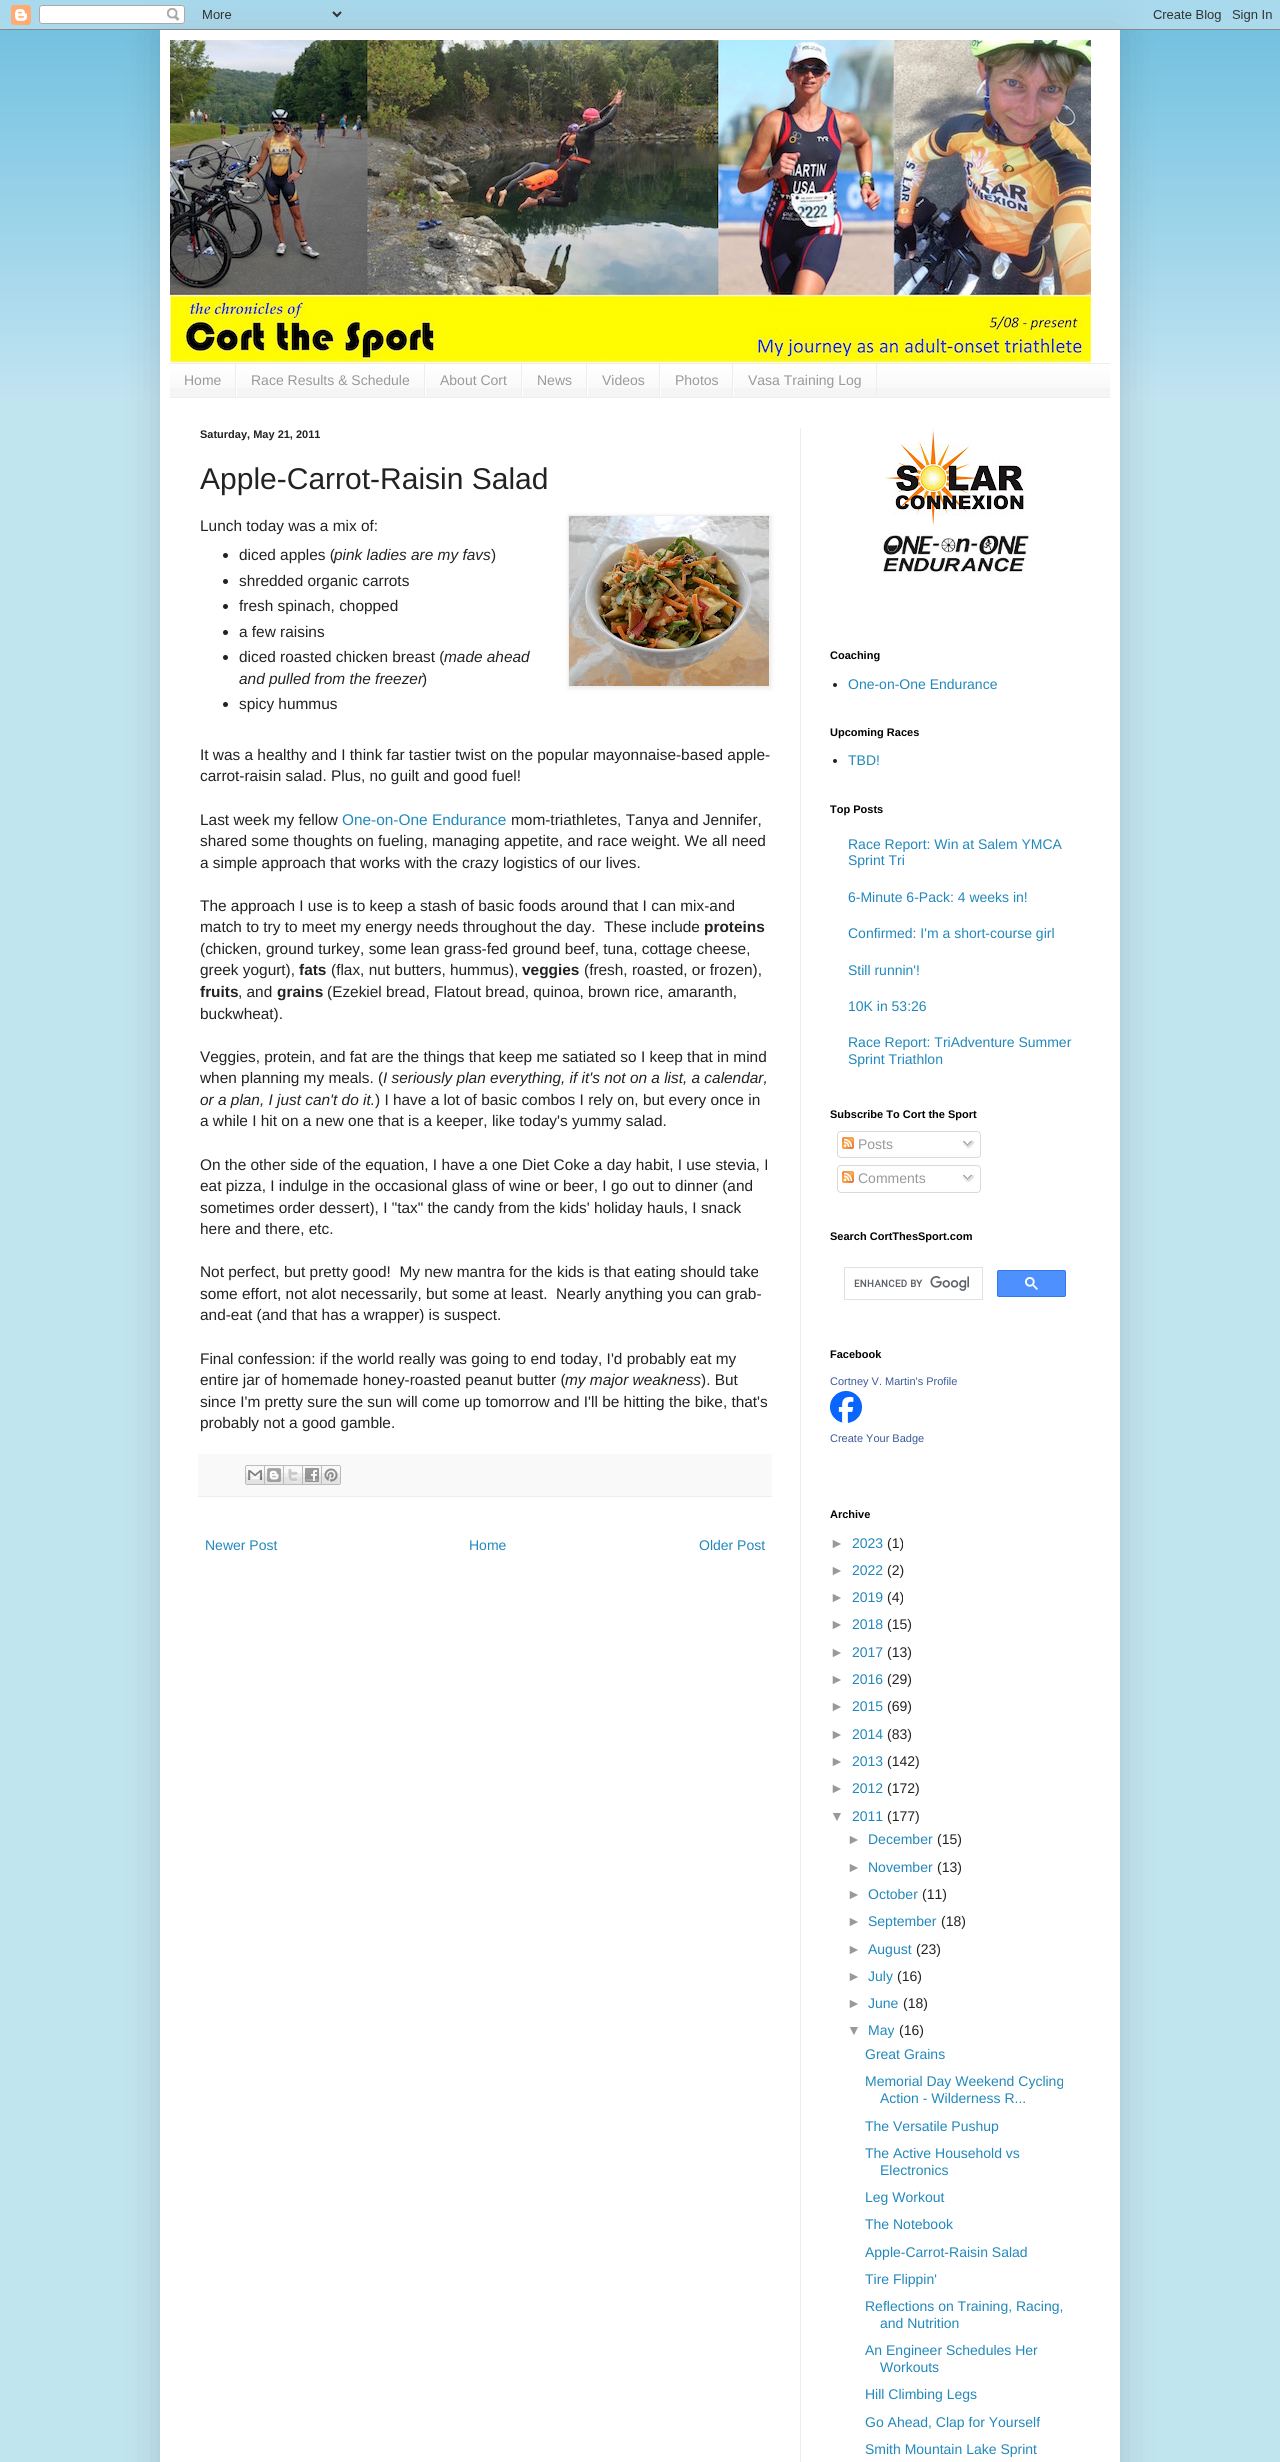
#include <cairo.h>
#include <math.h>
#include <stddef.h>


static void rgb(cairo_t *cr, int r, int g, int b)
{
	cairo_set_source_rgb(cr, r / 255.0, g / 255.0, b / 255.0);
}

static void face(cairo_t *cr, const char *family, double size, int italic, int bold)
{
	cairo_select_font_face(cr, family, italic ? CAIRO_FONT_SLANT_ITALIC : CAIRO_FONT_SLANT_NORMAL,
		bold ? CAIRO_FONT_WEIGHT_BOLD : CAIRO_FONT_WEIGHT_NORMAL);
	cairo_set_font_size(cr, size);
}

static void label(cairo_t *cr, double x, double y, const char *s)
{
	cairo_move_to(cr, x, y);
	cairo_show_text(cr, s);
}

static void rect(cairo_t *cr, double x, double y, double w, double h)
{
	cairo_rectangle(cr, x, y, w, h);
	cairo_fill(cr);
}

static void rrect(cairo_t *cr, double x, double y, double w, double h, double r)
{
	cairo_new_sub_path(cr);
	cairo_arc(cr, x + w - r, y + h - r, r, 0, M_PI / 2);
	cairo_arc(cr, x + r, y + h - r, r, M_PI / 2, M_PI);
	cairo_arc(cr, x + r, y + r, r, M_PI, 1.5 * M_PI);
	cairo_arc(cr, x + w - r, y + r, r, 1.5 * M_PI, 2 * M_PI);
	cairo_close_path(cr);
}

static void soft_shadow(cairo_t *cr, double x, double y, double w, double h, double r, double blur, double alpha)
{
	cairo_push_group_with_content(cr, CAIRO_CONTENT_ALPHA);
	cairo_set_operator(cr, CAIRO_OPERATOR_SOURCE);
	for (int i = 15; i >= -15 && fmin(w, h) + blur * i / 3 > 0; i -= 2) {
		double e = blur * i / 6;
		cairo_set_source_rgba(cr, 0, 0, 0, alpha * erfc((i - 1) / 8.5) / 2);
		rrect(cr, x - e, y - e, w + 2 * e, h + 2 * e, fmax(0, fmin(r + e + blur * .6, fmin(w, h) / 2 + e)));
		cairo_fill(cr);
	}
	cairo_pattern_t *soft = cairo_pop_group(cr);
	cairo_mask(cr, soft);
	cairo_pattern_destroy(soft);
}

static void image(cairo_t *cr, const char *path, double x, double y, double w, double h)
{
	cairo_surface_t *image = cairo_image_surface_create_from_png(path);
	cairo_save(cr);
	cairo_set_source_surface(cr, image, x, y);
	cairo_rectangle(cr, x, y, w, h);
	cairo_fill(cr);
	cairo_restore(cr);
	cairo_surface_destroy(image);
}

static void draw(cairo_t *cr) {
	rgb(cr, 193, 229, 239);
	cairo_paint(cr);
	rgb(cr, 102, 187, 221);
	rect(cr, 0, 0, 1280, 400);
	image(cr, "image0.png", 0, 0, 1280, 400);
	rgb(cr, 0, 0, 0);
	soft_shadow(cr, 160, 30, 960, 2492, 0, 20, 0.15);
	image(cr, "image1.png", 0, 0, 1280, 30);
	rgb(cr, 255, 255, 255);
	rect(cr, 160, 30, 960, 2432);
	image(cr, "image2.png", 170, 40, 921, 323);
	rgb(cr, 245, 245, 245);
	rect(cr, 170, 365, 940, 32);
	image(cr, "image3.png", 170, 364, 940, 24);
	rgb(cr, 238, 238, 238);
	rect(cr, 170, 363, 940, 1);
	rect(cr, 170, 397, 940, 1);
	rect(cr, 235, 364, 1, 33);
	face(cr, "Liberation Sans", 14, 0, 0);
	rgb(cr, 153, 153, 153);
	label(cr, 184, 385, "Home");
	rgb(cr, 238, 238, 238);
	rect(cr, 424, 364, 1, 33);
	rgb(cr, 255, 255, 255);
	rect(cr, 236, 375, 1, 22);
	rgb(cr, 153, 153, 153);
	label(cr, 251, 385, "Race Results & Schedule");
	rgb(cr, 238, 238, 238);
	rect(cr, 521, 364, 1, 33);
	rgb(cr, 255, 255, 255);
	rect(cr, 425, 375, 1, 22);
	rgb(cr, 153, 153, 153);
	label(cr, 440, 385, "About Cort");
	rgb(cr, 238, 238, 238);
	rect(cr, 586, 364, 1, 33);
	rgb(cr, 255, 255, 255);
	rect(cr, 522, 375, 1, 22);
	rgb(cr, 153, 153, 153);
	label(cr, 537, 385, "News");
	rgb(cr, 238, 238, 238);
	rect(cr, 659, 364, 1, 33);
	rgb(cr, 255, 255, 255);
	rect(cr, 587, 375, 1, 22);
	rgb(cr, 153, 153, 153);
	label(cr, 602, 385, "Videos");
	rgb(cr, 238, 238, 238);
	rect(cr, 732, 364, 1, 33);
	rgb(cr, 255, 255, 255);
	rect(cr, 660, 375, 1, 22);
	rgb(cr, 153, 153, 153);
	label(cr, 675, 385, "Photos");
	rgb(cr, 238, 238, 238);
	rect(cr, 876, 364, 1, 33);
	rgb(cr, 255, 255, 255);
	rect(cr, 733, 375, 1, 22);
	rgb(cr, 153, 153, 153);
	label(cr, 748, 385, "Vasa Training Log");
	rgb(cr, 238, 238, 238);
	rect(cr, 800, 428, 1, 2034);
	face(cr, "Liberation Sans", 11, 0, 1);
	rgb(cr, 34, 34, 34);
	label(cr, 200, 438, "Saturday, May 21, 2011");
	face(cr, "Liberation Sans", 30, 0, 0);
	label(cr, 200, 489, "Apple-Carrot-Raisin Salad");
	face(cr, "Liberation Sans", 15.4, 0, 0);
	label(cr, 200, 531, "Lunch today was a mix of:");
	rgb(cr, 0, 0, 0);
	soft_shadow(cr, 569, 516, 202, 172, 0, 2.5, 0.1);
	cairo_rectangle(cr, 568.5, 515.5, 201, 171);
	rgb(cr, 238, 238, 238);
	cairo_set_line_width(cr, 1);
	cairo_stroke(cr);
	image(cr, "image4.png", 569, 516, 200, 170);
	rgb(cr, 34, 34, 34);
	cairo_arc(cr, 225.5, 555.5, 2.5, 0, 2 * M_PI);
	cairo_fill(cr);
	label(cr, 239, 560, "diced apples (");
	face(cr, "Liberation Sans", 15.4, 1, 0);
	label(cr, 334, 560, "pink ladies are my favs");
	face(cr, "Liberation Sans", 15.4, 0, 0);
	label(cr, 491, 560, ")");
	cairo_new_path(cr);
	cairo_arc(cr, 225.5, 581.5, 2.5, 0, 2 * M_PI);
	cairo_fill(cr);
	label(cr, 239, 586, "shredded organic carrots");
	cairo_new_path(cr);
	cairo_arc(cr, 225.5, 606.5, 2.5, 0, 2 * M_PI);
	cairo_fill(cr);
	label(cr, 239, 611, "fresh spinach, chopped");
	cairo_new_path(cr);
	cairo_arc(cr, 225.5, 632.5, 2.5, 0, 2 * M_PI);
	cairo_fill(cr);
	label(cr, 239, 637, "a few raisins");
	cairo_new_path(cr);
	cairo_arc(cr, 225.5, 657.5, 2.5, 0, 2 * M_PI);
	cairo_fill(cr);
	label(cr, 239, 662, "diced roasted chicken breast (");
	face(cr, "Liberation Sans", 15.4, 1, 0);
	label(cr, 444, 662, "made ahead");
	label(cr, 239, 684, "and pulled from the freezer");
	face(cr, "Liberation Sans", 15.4, 0, 0);
	label(cr, 422, 684, ")");
	cairo_new_path(cr);
	cairo_arc(cr, 225.5, 704.5, 2.5, 0, 2 * M_PI);
	cairo_fill(cr);
	label(cr, 239, 709, "spicy hummus");
	label(cr, 200, 760, "It was a healthy and I think far tastier twist on the popular mayonnaise-based apple-");
	label(cr, 200, 781, "carrot-raisin salad. Plus, no guilt and good fuel!");
	label(cr, 200, 825, "Last week my fellow");
	rgb(cr, 34, 136, 187);
	label(cr, 342, 825, "One-on-One Endurance");
	rgb(cr, 34, 34, 34);
	label(cr, 511, 825, "mom-triathletes, Tanya and Jennifer,");
	label(cr, 200, 846, "shared some thoughts on fueling, managing appetite, and race weight. We all need");
	label(cr, 200, 868, "a simple approach that works with the crazy logistics of our lives.");
	label(cr, 200, 911, "The approach I use is to keep a stash of basic foods around that I can mix-and");
	label(cr, 200, 932, "match to try to meet my energy needs throughout the day.  These include");
	face(cr, "Liberation Sans", 15.4, 0, 1);
	label(cr, 704, 932, "proteins");
	face(cr, "Liberation Sans", 15.4, 0, 0);
	label(cr, 200, 954, "(chicken, ground turkey, some lean grass-fed ground beef, tuna, cottage cheese,");
	label(cr, 200, 975, "greek yogurt),");
	face(cr, "Liberation Sans", 15.4, 0, 1);
	label(cr, 299, 975, "fats");
	face(cr, "Liberation Sans", 15.4, 0, 0);
	label(cr, 331, 975, "(flax, nut butters, hummus),");
	face(cr, "Liberation Sans", 15.4, 0, 1);
	label(cr, 522, 975, "veggies");
	face(cr, "Liberation Sans", 15.4, 0, 0);
	label(cr, 584, 975, "(fresh, roasted, or frozen),");
	face(cr, "Liberation Sans", 15.4, 0, 1);
	label(cr, 200, 997, "fruits");
	face(cr, "Liberation Sans", 15.4, 0, 0);
	label(cr, 238, 997, ", and");
	face(cr, "Liberation Sans", 15.4, 0, 1);
	label(cr, 277, 997, "grains");
	face(cr, "Liberation Sans", 15.4, 0, 0);
	label(cr, 327, 997, "(Ezekiel bread, Flatout bread, quinoa, brown rice, amaranth,");
	label(cr, 200, 1019, "buckwheat).");
	label(cr, 200, 1062, "Veggies, protein, and fat are the things that keep me satiated so I keep that in mind");
	label(cr, 200, 1083, "when planning my meals. (");
	face(cr, "Liberation Sans", 15.4, 1, 0);
	label(cr, 383, 1083, "I seriously plan everything, if it's not on a list, a calendar,");
	label(cr, 200, 1105, "or a plan, I just can't do it.");
	face(cr, "Liberation Sans", 15.4, 0, 0);
	label(cr, 375, 1105, ") I have a lot of basic combos I rely on, but every once in");
	label(cr, 200, 1126, "a while I hit on a new one that is a keeper, like today's yummy salad.");
	label(cr, 200, 1170, "On the other side of the equation, I have a one Diet Coke a day habit, I use stevia, I");
	label(cr, 200, 1191, "eat pizza, I indulge in the occasional glass of wine or beer, I go out to dinner (and");
	label(cr, 200, 1213, "sometimes order dessert), I \"tax\" the candy from the kids' holiday hauls, I snack");
	label(cr, 200, 1234, "here and there, etc.");
	label(cr, 200, 1277, "Not perfect, but pretty good!  My new mantra for the kids is that eating should take");
	label(cr, 200, 1299, "some effort, not alot necessarily, but some at least.  Nearly anything you can grab-");
	label(cr, 200, 1320, "and-eat (and that has a wrapper) is suspect.");
	label(cr, 200, 1364, "Final confession: if the world really was going to end today, I'd probably eat my");
	label(cr, 200, 1385, "entire jar of homemade honey-roasted peanut butter (");
	face(cr, "Liberation Sans", 15.4, 1, 0);
	label(cr, 565, 1385, "my major weakness");
	face(cr, "Liberation Sans", 15.4, 0, 0);
	label(cr, 701, 1385, "). But");
	label(cr, 200, 1407, "since I'm pretty sure the sun will come up tomorrow and I'll be hitting the bike, that's");
	label(cr, 200, 1428, "probably not a good gamble.");
	rgb(cr, 249, 249, 249);
	rect(cr, 198, 1454, 574, 42);
	rgb(cr, 238, 238, 238);
	rect(cr, 198, 1496, 574, 1);
	image(cr, "image5.png", 245, 1465, 20, 20);
	image(cr, "image6.png", 265, 1465, 19, 20);
	image(cr, "image7.png", 284, 1465, 19, 20);
	image(cr, "image8.png", 303, 1465, 19, 20);
	image(cr, "image9.png", 322, 1465, 19, 20);
	face(cr, "Liberation Sans", 14, 0, 0);
	rgb(cr, 34, 136, 187);
	label(cr, 205, 1550, "Newer Post");
	label(cr, 469, 1550, "Home");
	label(cr, 699, 1550, "Older Post");
	image(cr, "image10.png", 885, 428, 141, 99);
	image(cr, "image11.png", 880, 532, 150, 42);
	face(cr, "Liberation Sans", 11, 0, 1);
	rgb(cr, 0, 0, 0);
	label(cr, 830, 659, "Coaching");
	rgb(cr, 34, 34, 34);
	cairo_new_path(cr);
	cairo_arc(cr, 835, 685, 2, 0, 2 * M_PI);
	cairo_fill(cr);
	face(cr, "Liberation Sans", 14, 0, 0);
	rgb(cr, 34, 136, 187);
	label(cr, 848, 689, "One-on-One Endurance");
	face(cr, "Liberation Sans", 11, 0, 1);
	rgb(cr, 0, 0, 0);
	label(cr, 830, 736, "Upcoming Races");
	rgb(cr, 34, 34, 34);
	cairo_new_path(cr);
	cairo_arc(cr, 835, 761, 2, 0, 2 * M_PI);
	cairo_fill(cr);
	face(cr, "Liberation Sans", 14, 0, 0);
	rgb(cr, 34, 136, 187);
	label(cr, 848, 765, "TBD!");
	face(cr, "Liberation Sans", 11, 0, 1);
	rgb(cr, 0, 0, 0);
	label(cr, 830, 813, "Top Posts");
	face(cr, "Liberation Sans", 14, 0, 0);
	rgb(cr, 34, 136, 187);
	label(cr, 848, 849, "Race Report: Win at Salem YMCA");
	label(cr, 848, 865, "Sprint Tri");
	label(cr, 848, 902, "6-Minute 6-Pack: 4 weeks in!");
	label(cr, 848, 938, "Confirmed: I'm a short-course girl");
	label(cr, 848, 975, "Still runnin'!");
	label(cr, 848, 1011, "10K in 53:26");
	label(cr, 848, 1047, "Race Report: TriAdventure Summer");
	label(cr, 848, 1064, "Sprint Triathlon");
	face(cr, "Liberation Sans", 11, 0, 1);
	rgb(cr, 0, 0, 0);
	label(cr, 830, 1118, "Subscribe To Cort the Sport");
	image(cr, "image12.png", 837, 1131, 144, 24);
	image(cr, "image13.png", 842, 1137, 12, 12);
	face(cr, "Liberation Sans", 14, 0, 0);
	rgb(cr, 153, 153, 153);
	label(cr, 858, 1149, "Posts");
	image(cr, "image14.png", 962, 1140, 13, 9);
	image(cr, "image15.png", 837, 1155, 144, 3);
	image(cr, "image16.png", 837, 1165, 144, 25);
	image(cr, "image13.png", 842, 1171, 12, 12);
	label(cr, 858, 1183, "Comments");
	image(cr, "image14.png", 962, 1174, 13, 9);
	image(cr, "image15.png", 837, 1190, 144, 3);
	face(cr, "Liberation Sans", 11, 0, 1);
	rgb(cr, 0, 0, 0);
	label(cr, 830, 1240, "Search CortThesSport.com");
	cairo_rectangle(cr, 844.5, 1267.5, 138, 32);
	rgb(cr, 223, 225, 229);
	cairo_stroke(cr);
	image(cr, "image17.png", 854, 1276, 115, 15);
	rgb(cr, 77, 144, 254);
	rrect(cr, 997.5, 1270.5, 68, 26, 1.5);
	cairo_fill_preserve(cr);
	rgb(cr, 48, 121, 237);
	cairo_stroke(cr);
	image(cr, "image18.png", 1025, 1277, 13, 13);
	rgb(cr, 0, 0, 0);
	label(cr, 830, 1358, "Facebook");
	face(cr, "Liberation Sans", 11, 0, 0);
	rgb(cr, 59, 89, 152);
	label(cr, 830, 1385, "Cortney V. Martin's Profile");
	image(cr, "image19.png", 830, 1391, 32, 32);
	label(cr, 830, 1442, "Create Your Badge");
	face(cr, "Liberation Sans", 11, 0, 1);
	rgb(cr, 0, 0, 0);
	label(cr, 830, 1518, "Archive");
	face(cr, "Liberation Sans", 14, 0, 0);
	rgb(cr, 153, 153, 153);
	label(cr, 830, 1548, "►");
	rgb(cr, 34, 136, 187);
	label(cr, 852, 1548, "2023");
	rgb(cr, 34, 34, 34);
	label(cr, 887, 1548, "(1)");
	rgb(cr, 153, 153, 153);
	label(cr, 830, 1575, "►");
	rgb(cr, 34, 136, 187);
	label(cr, 852, 1575, "2022");
	rgb(cr, 34, 34, 34);
	label(cr, 887, 1575, "(2)");
	rgb(cr, 153, 153, 153);
	label(cr, 830, 1602, "►");
	rgb(cr, 34, 136, 187);
	label(cr, 852, 1602, "2019");
	rgb(cr, 34, 34, 34);
	label(cr, 887, 1602, "(4)");
	rgb(cr, 153, 153, 153);
	label(cr, 830, 1629, "►");
	rgb(cr, 34, 136, 187);
	label(cr, 852, 1629, "2018");
	rgb(cr, 34, 34, 34);
	label(cr, 887, 1629, "(15)");
	rgb(cr, 153, 153, 153);
	label(cr, 830, 1657, "►");
	rgb(cr, 34, 136, 187);
	label(cr, 852, 1657, "2017");
	rgb(cr, 34, 34, 34);
	label(cr, 887, 1657, "(13)");
	rgb(cr, 153, 153, 153);
	label(cr, 830, 1684, "►");
	rgb(cr, 34, 136, 187);
	label(cr, 852, 1684, "2016");
	rgb(cr, 34, 34, 34);
	label(cr, 887, 1684, "(29)");
	rgb(cr, 153, 153, 153);
	label(cr, 830, 1711, "►");
	rgb(cr, 34, 136, 187);
	label(cr, 852, 1711, "2015");
	rgb(cr, 34, 34, 34);
	label(cr, 887, 1711, "(69)");
	rgb(cr, 153, 153, 153);
	label(cr, 830, 1739, "►");
	rgb(cr, 34, 136, 187);
	label(cr, 852, 1739, "2014");
	rgb(cr, 34, 34, 34);
	label(cr, 887, 1739, "(83)");
	rgb(cr, 153, 153, 153);
	label(cr, 830, 1766, "►");
	rgb(cr, 34, 136, 187);
	label(cr, 852, 1766, "2013");
	rgb(cr, 34, 34, 34);
	label(cr, 887, 1766, "(142)");
	rgb(cr, 153, 153, 153);
	label(cr, 830, 1793, "►");
	rgb(cr, 34, 136, 187);
	label(cr, 852, 1793, "2012");
	rgb(cr, 34, 34, 34);
	label(cr, 887, 1793, "(172)");
	rgb(cr, 153, 153, 153);
	label(cr, 830, 1821, "▼");
	rgb(cr, 34, 136, 187);
	label(cr, 852, 1821, "2011");
	rgb(cr, 34, 34, 34);
	label(cr, 887, 1821, "(177)");
	rgb(cr, 153, 153, 153);
	label(cr, 847, 1844, "►");
	rgb(cr, 34, 136, 187);
	label(cr, 868, 1844, "December");
	rgb(cr, 34, 34, 34);
	label(cr, 937, 1844, "(15)");
	rgb(cr, 153, 153, 153);
	label(cr, 847, 1872, "►");
	rgb(cr, 34, 136, 187);
	label(cr, 868, 1872, "November");
	rgb(cr, 34, 34, 34);
	label(cr, 937, 1872, "(13)");
	rgb(cr, 153, 153, 153);
	label(cr, 847, 1899, "►");
	rgb(cr, 34, 136, 187);
	label(cr, 868, 1899, "October");
	rgb(cr, 34, 34, 34);
	label(cr, 922, 1899, "(11)");
	rgb(cr, 153, 153, 153);
	label(cr, 847, 1926, "►");
	rgb(cr, 34, 136, 187);
	label(cr, 868, 1926, "September");
	rgb(cr, 34, 34, 34);
	label(cr, 941, 1926, "(18)");
	rgb(cr, 153, 153, 153);
	label(cr, 847, 1954, "►");
	rgb(cr, 34, 136, 187);
	label(cr, 868, 1954, "August");
	rgb(cr, 34, 34, 34);
	label(cr, 916, 1954, "(23)");
	rgb(cr, 153, 153, 153);
	label(cr, 847, 1981, "►");
	rgb(cr, 34, 136, 187);
	label(cr, 868, 1981, "July");
	rgb(cr, 34, 34, 34);
	label(cr, 897, 1981, "(16)");
	rgb(cr, 153, 153, 153);
	label(cr, 847, 2008, "►");
	rgb(cr, 34, 136, 187);
	label(cr, 868, 2008, "June");
	rgb(cr, 34, 34, 34);
	label(cr, 903, 2008, "(18)");
	rgb(cr, 153, 153, 153);
	label(cr, 847, 2035, "▼");
	rgb(cr, 34, 136, 187);
	label(cr, 868, 2035, "May");
	rgb(cr, 34, 34, 34);
	label(cr, 899, 2035, "(16)");
	rgb(cr, 34, 136, 187);
	label(cr, 865, 2059, "Great Grains");
	label(cr, 865, 2086, "Memorial Day Weekend Cycling");
	label(cr, 880, 2103, "Action - Wilderness R...");
	label(cr, 865, 2131, "The Versatile Pushup");
	label(cr, 865, 2158, "The Active Household vs");
	label(cr, 880, 2175, "Electronics");
	label(cr, 865, 2202, "Leg Workout");
	label(cr, 865, 2229, "The Notebook");
	label(cr, 865, 2257, "Apple-Carrot-Raisin Salad");
	label(cr, 865, 2284, "Tire Flippin'");
	label(cr, 865, 2311, "Reflections on Training, Racing,");
	label(cr, 880, 2328, "and Nutrition");
	label(cr, 865, 2355, "An Engineer Schedules Her");
	label(cr, 880, 2372, "Workouts");
	label(cr, 865, 2399, "Hill Climbing Legs");
	label(cr, 865, 2427, "Go Ahead, Clap for Yourself");
	label(cr, 865, 2454, "Smith Mountain Lake Sprint");
}

int main(void) {
	cairo_surface_t *surface = cairo_image_surface_create(CAIRO_FORMAT_RGB24, 1280, 2462);
	cairo_t *cr = cairo_create(surface);
	cairo_font_options_t *options = cairo_font_options_create();
	cairo_font_options_set_hint_metrics(options, CAIRO_HINT_METRICS_OFF);
	cairo_font_options_set_hint_style(options, CAIRO_HINT_STYLE_NONE);
	cairo_set_font_options(cr, options);
	cairo_set_miter_limit(cr, 4);
	draw(cr);
	cairo_surface_write_to_png(surface, "render.png");
	cairo_font_options_destroy(options);
	cairo_destroy(cr);
	cairo_surface_destroy(surface);
	return 0;
}
